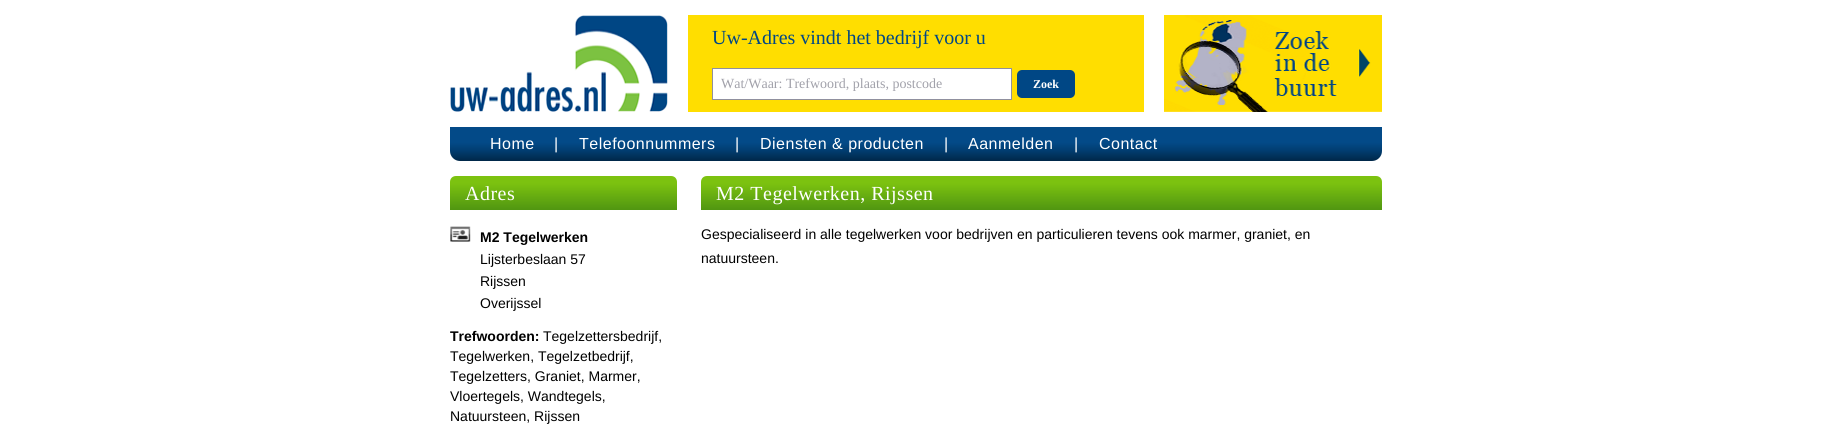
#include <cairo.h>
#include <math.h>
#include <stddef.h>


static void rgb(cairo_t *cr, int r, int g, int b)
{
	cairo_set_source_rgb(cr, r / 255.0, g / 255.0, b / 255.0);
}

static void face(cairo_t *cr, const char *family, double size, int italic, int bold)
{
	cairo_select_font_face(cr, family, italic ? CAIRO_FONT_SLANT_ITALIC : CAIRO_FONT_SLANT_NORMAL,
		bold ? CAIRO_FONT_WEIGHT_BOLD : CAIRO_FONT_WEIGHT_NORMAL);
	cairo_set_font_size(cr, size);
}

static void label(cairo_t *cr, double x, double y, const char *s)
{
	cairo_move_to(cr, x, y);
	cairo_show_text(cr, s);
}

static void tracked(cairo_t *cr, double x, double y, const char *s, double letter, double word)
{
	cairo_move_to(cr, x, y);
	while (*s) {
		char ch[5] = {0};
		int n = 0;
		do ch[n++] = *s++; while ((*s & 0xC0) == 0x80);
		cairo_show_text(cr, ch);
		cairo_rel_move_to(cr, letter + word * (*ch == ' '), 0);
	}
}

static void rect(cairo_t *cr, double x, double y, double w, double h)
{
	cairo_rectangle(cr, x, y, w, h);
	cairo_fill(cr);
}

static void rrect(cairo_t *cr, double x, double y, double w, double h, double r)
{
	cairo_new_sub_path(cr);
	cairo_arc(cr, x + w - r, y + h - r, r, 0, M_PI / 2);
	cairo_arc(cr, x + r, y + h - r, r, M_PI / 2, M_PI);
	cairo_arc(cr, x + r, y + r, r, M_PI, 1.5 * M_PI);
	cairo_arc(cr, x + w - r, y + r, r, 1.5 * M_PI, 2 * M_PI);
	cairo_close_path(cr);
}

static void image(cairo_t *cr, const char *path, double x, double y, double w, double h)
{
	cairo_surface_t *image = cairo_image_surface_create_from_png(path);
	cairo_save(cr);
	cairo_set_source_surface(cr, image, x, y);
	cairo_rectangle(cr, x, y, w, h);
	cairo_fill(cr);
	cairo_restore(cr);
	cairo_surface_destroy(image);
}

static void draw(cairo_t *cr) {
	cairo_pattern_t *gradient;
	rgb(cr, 255, 255, 255);
	cairo_paint(cr);
	image(cr, "image0.png", 450, 15, 218, 97);
	rgb(cr, 255, 222, 0);
	rect(cr, 688, 15, 456, 97);
	face(cr, "Liberation Serif", 20, 0, 0);
	rgb(cr, 0, 71, 133);
	label(cr, 712, 44, "Uw-Adres vindt het bedrijf voor u");
	rgb(cr, 255, 255, 255);
	cairo_rectangle(cr, 712.5, 68.5, 299, 31);
	cairo_fill_preserve(cr);
	rgb(cr, 144, 144, 158);
	cairo_set_line_width(cr, 1);
	cairo_stroke(cr);
	face(cr, "Liberation Serif", 14, 0, 0);
	rgb(cr, 161, 161, 170);
	label(cr, 721, 88, "Wat/Waar: Trefwoord, plaats, postcode");
	rgb(cr, 0, 71, 133);
	rrect(cr, 1017, 70, 58, 28, 5);
	cairo_fill(cr);
	face(cr, "Liberation Serif", 12, 0, 1);
	rgb(cr, 255, 255, 255);
	label(cr, 1033, 88, "Zoek");
	image(cr, "image1.png", 1164, 15, 218, 97);
	gradient = cairo_pattern_create_linear(916, 161, 916, 127);
	cairo_pattern_add_color_stop_rgba(gradient, 0, 0, 0.153, 0.282, 1);
	cairo_pattern_add_color_stop_rgba(gradient, 0.3, 0.004, 0.239, 0.439, 1);
	cairo_pattern_add_color_stop_rgba(gradient, 0.55, 0.012, 0.29, 0.533, 1);
	cairo_set_source(cr, gradient);
	cairo_pattern_destroy(gradient);
	cairo_new_path(cr);
	cairo_move_to(cr, 450, 127);
	cairo_line_to(cr, 1382, 127);
	cairo_line_to(cr, 1382, 151);
	cairo_curve_to(cr, 1382, 156.5, 1377.5, 161, 1372, 161);
	cairo_line_to(cr, 460, 161);
	cairo_curve_to(cr, 454.5, 161, 450, 156.5, 450, 151);
	cairo_close_path(cr);
	cairo_fill(cr);
	face(cr, "Liberation Sans", 16, 0, 0);
	rgb(cr, 255, 255, 255);
	tracked(cr, 490, 149, "Home", 0.5, 0);
	tracked(cr, 554, 149, "|", 0.5, 0);
	tracked(cr, 579, 149, "Telefoonnummers", 0.5, 0);
	tracked(cr, 735, 149, "|", 0.5, 0);
	tracked(cr, 760, 149, "Diensten & producten", 0.5, 0);
	tracked(cr, 944, 149, "|", 0.5, 0);
	tracked(cr, 968, 149, "Aanmelden", 0.5, 0);
	tracked(cr, 1074, 149, "|", 0.5, 0);
	tracked(cr, 1099, 149, "Contact", 0.5, 0);
	gradient = cairo_pattern_create_linear(564, 210, 564, 176);
	cairo_pattern_add_color_stop_rgba(gradient, 0, 0.314, 0.588, 0.067, 1);
	cairo_pattern_add_color_stop_rgba(gradient, 0.79, 0.486, 0.761, 0.063, 1);
	cairo_set_source(cr, gradient);
	cairo_pattern_destroy(gradient);
	cairo_new_path(cr);
	cairo_move_to(cr, 456, 176);
	cairo_line_to(cr, 671, 176);
	cairo_curve_to(cr, 674.5, 176, 677, 178.5, 677, 182);
	cairo_line_to(cr, 677, 210);
	cairo_line_to(cr, 450, 210);
	cairo_line_to(cr, 450, 182);
	cairo_curve_to(cr, 450, 178.5, 452.5, 176, 456, 176);
	cairo_close_path(cr);
	cairo_fill(cr);
	face(cr, "Liberation Serif", 20, 0, 0);
	rgb(cr, 255, 255, 255);
	tracked(cr, 465, 200, "Adres", 0.5, 0);
	image(cr, "image2.png", 450, 226, 21, 16);
	face(cr, "Liberation Sans", 14, 0, 1);
	rgb(cr, 0, 0, 0);
	label(cr, 480, 242, "M2 Tegelwerken");
	face(cr, "Liberation Sans", 14, 0, 0);
	label(cr, 480, 264, "Lijsterbeslaan 57");
	label(cr, 480, 286, "Rijssen");
	label(cr, 480, 308, "Overijssel");
	face(cr, "Liberation Sans", 14, 0, 1);
	label(cr, 450, 341, "Trefwoorden:");
	face(cr, "Liberation Sans", 14, 0, 0);
	label(cr, 543, 341, "Tegelzettersbedrijf,");
	label(cr, 450, 361, "Tegelwerken, Tegelzetbedrijf,");
	label(cr, 450, 381, "Tegelzetters, Graniet, Marmer,");
	label(cr, 450, 401, "Vloertegels, Wandtegels,");
	label(cr, 450, 421, "Natuursteen, Rijssen");
	gradient = cairo_pattern_create_linear(1042, 210, 1042, 176);
	cairo_pattern_add_color_stop_rgba(gradient, 0, 0.314, 0.588, 0.067, 1);
	cairo_pattern_add_color_stop_rgba(gradient, 0.79, 0.486, 0.761, 0.063, 1);
	cairo_set_source(cr, gradient);
	cairo_pattern_destroy(gradient);
	cairo_new_path(cr);
	cairo_move_to(cr, 707, 176);
	cairo_line_to(cr, 1376, 176);
	cairo_curve_to(cr, 1379.5, 176, 1382, 178.5, 1382, 182);
	cairo_line_to(cr, 1382, 210);
	cairo_line_to(cr, 701, 210);
	cairo_line_to(cr, 701, 182);
	cairo_curve_to(cr, 701, 178.5, 703.5, 176, 707, 176);
	cairo_close_path(cr);
	cairo_fill(cr);
	face(cr, "Liberation Serif", 20, 0, 0);
	rgb(cr, 255, 255, 255);
	tracked(cr, 716, 200, "M2 Tegelwerken, Rijssen", 0.5, 0);
	face(cr, "Liberation Sans", 14, 0, 0);
	rgb(cr, 0, 0, 0);
	label(cr, 701, 239, "Gespecialiseerd in alle tegelwerken voor bedrijven en particulieren tevens ook marmer, graniet, en");
	label(cr, 701, 263, "natuursteen.");
}

int main(void) {
	cairo_surface_t *surface = cairo_image_surface_create(CAIRO_FORMAT_RGB24, 1831, 430);
	cairo_t *cr = cairo_create(surface);
	cairo_font_options_t *options = cairo_font_options_create();
	cairo_font_options_set_hint_metrics(options, CAIRO_HINT_METRICS_OFF);
	cairo_font_options_set_hint_style(options, CAIRO_HINT_STYLE_NONE);
	cairo_set_font_options(cr, options);
	cairo_set_miter_limit(cr, 4);
	draw(cr);
	cairo_surface_write_to_png(surface, "render.png");
	cairo_font_options_destroy(options);
	cairo_destroy(cr);
	cairo_surface_destroy(surface);
	return 0;
}
